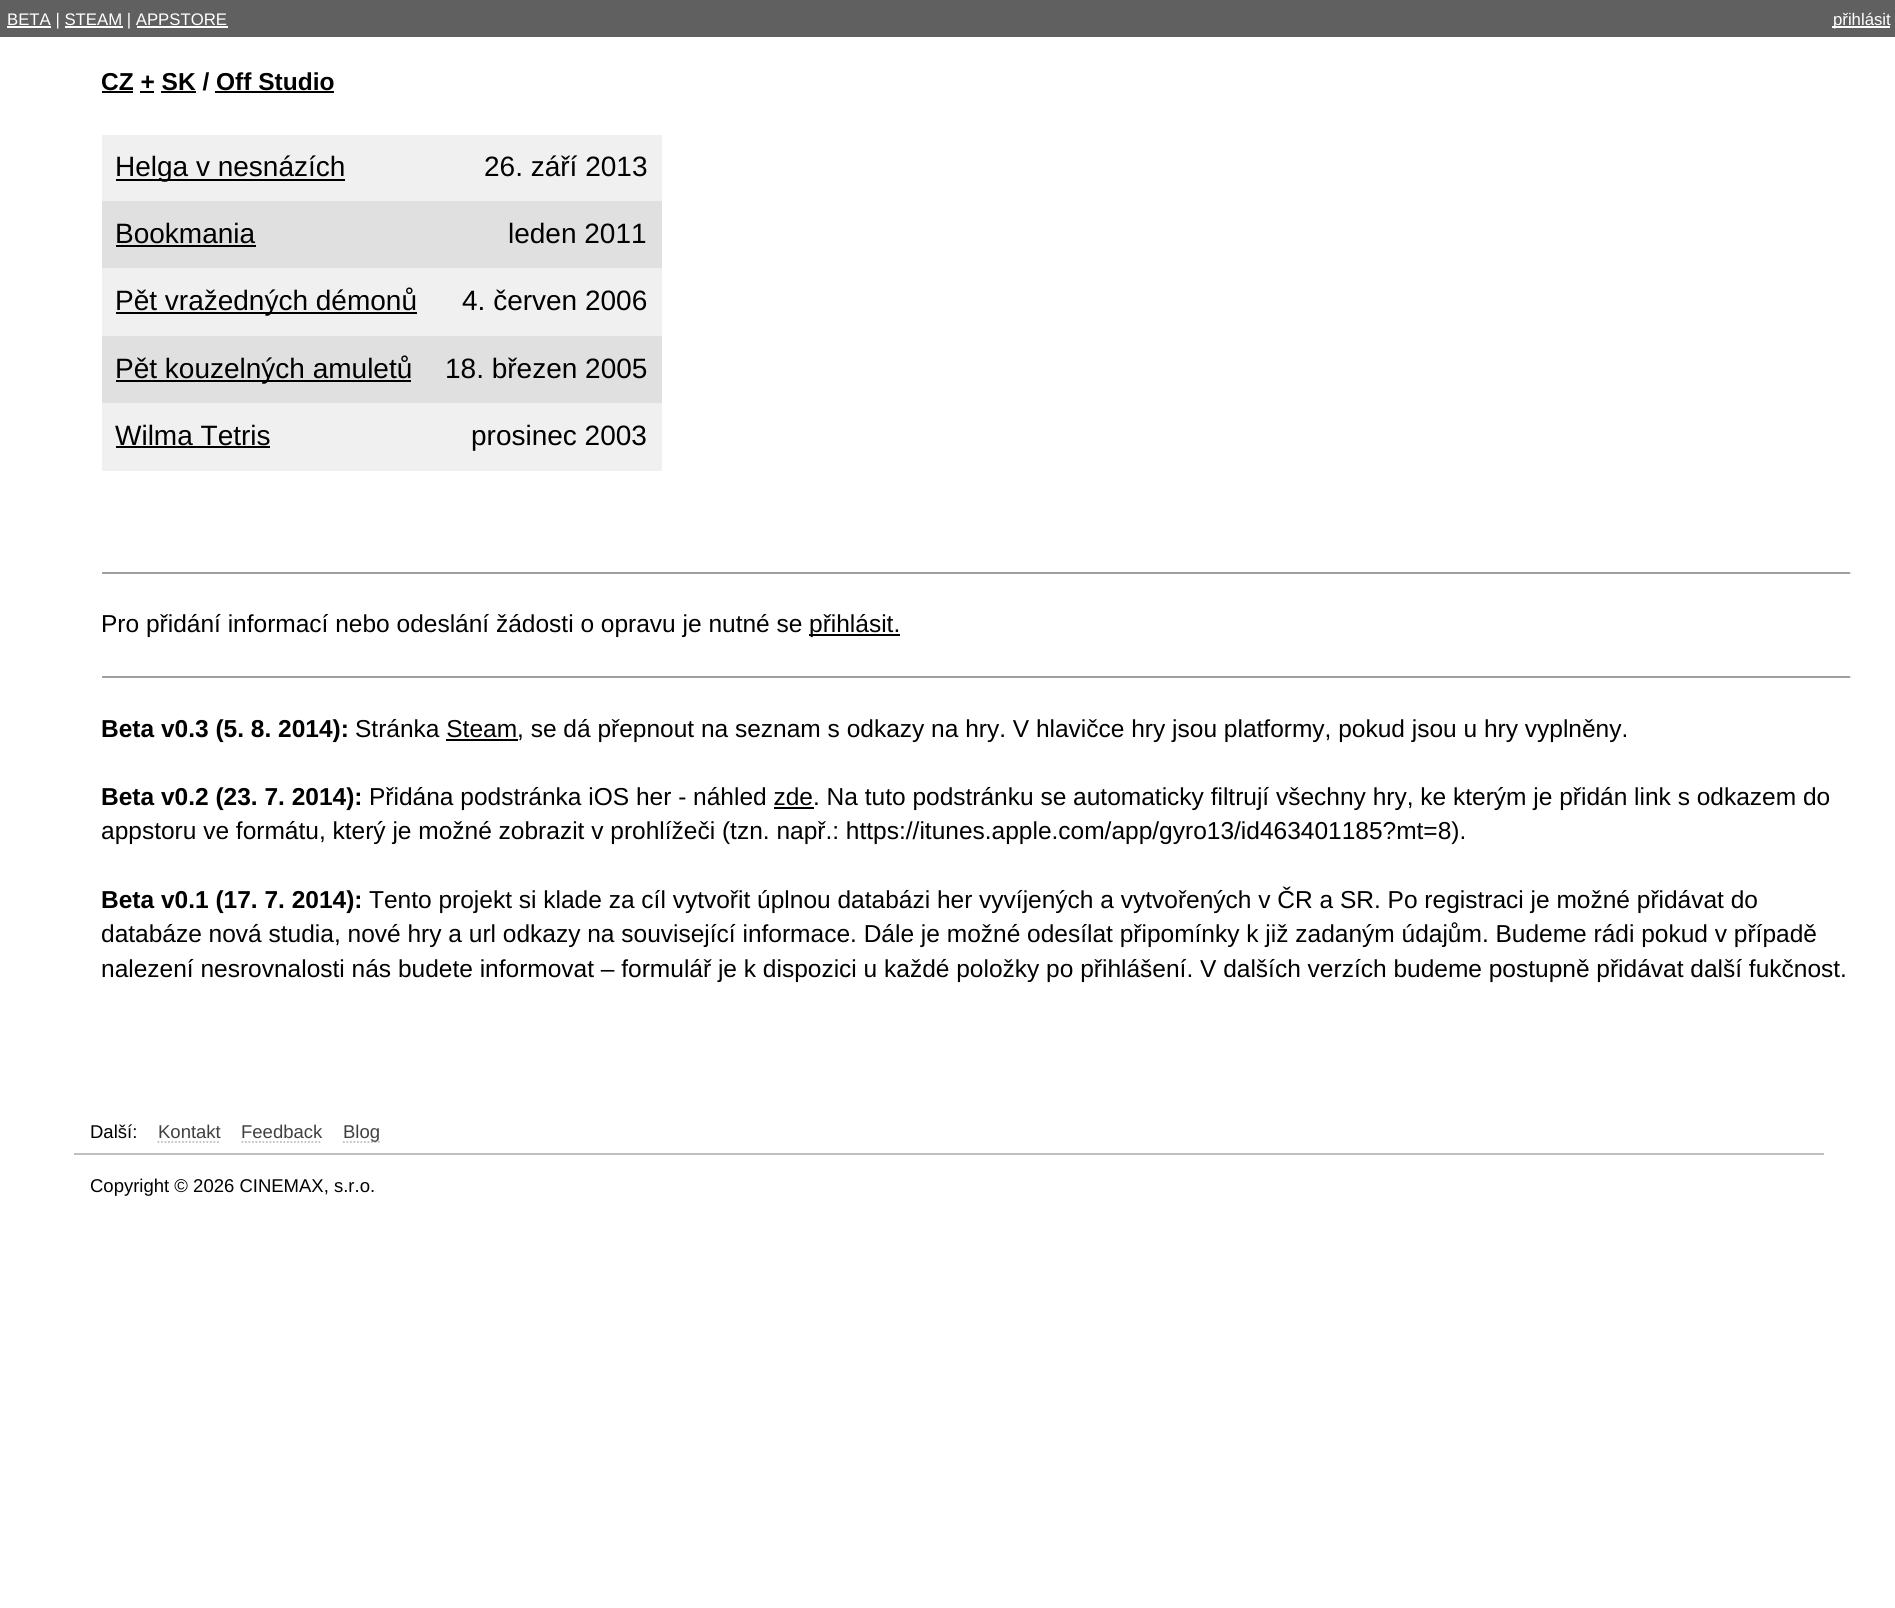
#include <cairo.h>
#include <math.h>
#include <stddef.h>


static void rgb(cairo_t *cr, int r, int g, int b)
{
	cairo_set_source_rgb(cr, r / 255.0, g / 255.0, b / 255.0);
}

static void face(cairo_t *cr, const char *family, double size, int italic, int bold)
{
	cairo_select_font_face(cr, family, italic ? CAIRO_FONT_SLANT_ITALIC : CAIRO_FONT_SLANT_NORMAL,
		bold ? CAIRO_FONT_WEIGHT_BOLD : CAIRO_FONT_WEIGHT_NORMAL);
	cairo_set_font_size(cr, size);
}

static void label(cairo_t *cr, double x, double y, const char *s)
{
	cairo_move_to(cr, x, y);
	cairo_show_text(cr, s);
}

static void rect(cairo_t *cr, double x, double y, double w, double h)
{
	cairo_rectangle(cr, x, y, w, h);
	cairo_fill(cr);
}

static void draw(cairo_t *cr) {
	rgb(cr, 255, 255, 255);
	cairo_paint(cr);
	rgb(cr, 96, 96, 96);
	rect(cr, 0, 0, 1895, 37);
	rgb(cr, 255, 255, 255);
	rect(cr, 7, 26, 44, 2);
	face(cr, "Liberation Sans", 16.75, 0, 0);
	label(cr, 7, 25, "BETA | STEAM | APPSTORE");
	rect(cr, 65, 26, 58, 2);
	rect(cr, 137, 26, 91, 2);
	rect(cr, 1832, 26, 58, 2);
	label(cr, 1833, 25, "přihlásit");
	face(cr, "Liberation Sans", 24.5, 0, 1);
	rgb(cr, 0, 0, 0);
	label(cr, 101, 90, "CZ + SK / Off Studio");
	rect(cr, 102, 91, 31, 2);
	rect(cr, 140, 91, 14, 2);
	rect(cr, 161, 91, 35, 2);
	rect(cr, 215, 91, 119, 2);
	rgb(cr, 240, 240, 240);
	rect(cr, 102, 135, 560, 66);
	rgb(cr, 0, 0, 0);
	rect(cr, 116, 179, 229, 2);
	face(cr, "Liberation Sans", 28, 0, 0);
	label(cr, 115, 176, "Helga v nesnázích");
	label(cr, 484, 176, "26. září 2013");
	rgb(cr, 224, 224, 224);
	rect(cr, 102, 201, 560, 67);
	rgb(cr, 0, 0, 0);
	label(cr, 115, 243, "Bookmania");
	rect(cr, 116, 245, 140, 2);
	label(cr, 508, 243, "leden 2011");
	rgb(cr, 240, 240, 240);
	rect(cr, 102, 268, 560, 68);
	rgb(cr, 0, 0, 0);
	rect(cr, 116, 312, 301, 2);
	label(cr, 115, 310, "Pět vražedných démonů");
	label(cr, 462, 310, "4. červen 2006");
	rgb(cr, 224, 224, 224);
	rect(cr, 102, 336, 560, 67);
	rgb(cr, 0, 0, 0);
	rect(cr, 116, 380, 295, 2);
	label(cr, 115, 378, "Pět kouzelných amuletů");
	label(cr, 445, 378, "18. březen 2005");
	rgb(cr, 240, 240, 240);
	rect(cr, 102, 403, 560, 68);
	rgb(cr, 0, 0, 0);
	label(cr, 115, 445, "Wilma Tetris");
	rect(cr, 116, 446, 154, 2);
	label(cr, 471, 445, "prosinec 2003");
	rgb(cr, 159, 159, 159);
	rect(cr, 102, 572, 1750, 2);
	rgb(cr, 238, 238, 238);
	rect(cr, 1850, 572, 2, 2);
	face(cr, "Liberation Sans", 24.5, 0, 0);
	rgb(cr, 0, 0, 0);
	label(cr, 101, 632, "Pro přidání informací nebo odeslání žádosti o opravu je nutné se");
	rect(cr, 809, 634, 91, 2);
	label(cr, 809, 632, "přihlásit.");
	rgb(cr, 159, 159, 159);
	rect(cr, 102, 676, 1750, 2);
	rgb(cr, 238, 238, 238);
	rect(cr, 1850, 676, 2, 2);
	face(cr, "Liberation Sans", 24.5, 0, 1);
	rgb(cr, 0, 0, 0);
	label(cr, 101, 737, "Beta v0.3 (5. 8. 2014):");
	face(cr, "Liberation Sans", 24.5, 0, 0);
	label(cr, 355, 737, "Stránka Steam, se dá přepnout na seznam s odkazy na hry. V hlavičce hry jsou platformy, pokud jsou u hry vyplněny.");
	rect(cr, 446, 739, 72, 2);
	face(cr, "Liberation Sans", 24.5, 0, 1);
	label(cr, 101, 805, "Beta v0.2 (23. 7. 2014):");
	face(cr, "Liberation Sans", 24.5, 0, 0);
	label(cr, 369, 805, "Přidána podstránka iOS her - náhled zde. Na tuto podstránku se automaticky filtrují všechny hry, ke kterým je přidán link s odkazem do");
	rect(cr, 774, 807, 40, 2);
	label(cr, 101, 839, "appstoru ve formátu, který je možné zobrazit v prohlížeči (tzn. např.: https://itunes.apple.com/app/gyro13/id463401185?mt=8).");
	face(cr, "Liberation Sans", 24.5, 0, 1);
	label(cr, 101, 908, "Beta v0.1 (17. 7. 2014):");
	face(cr, "Liberation Sans", 24.5, 0, 0);
	label(cr, 369, 908, "Tento projekt si klade za cíl vytvořit úplnou databázi her vyvíjených a vytvořených v ČR a SR. Po registraci je možné přidávat do");
	label(cr, 101, 942, "databáze nová studia, nové hry a url odkazy na související informace. Dále je možné odesílat připomínky k již zadaným údajům. Budeme rádi pokud v případě");
	label(cr, 101, 977, "nalezení nesrovnalosti nás budete informovat – formulář je k dispozici u každé položky po přihlášení. V dalších verzích budeme postupně přidávat další fukčnost.");
	face(cr, "Liberation Sans", 18.5, 0, 0);
	label(cr, 90, 1138, "Další:");
	rgb(cr, 64, 64, 64);
	label(cr, 158, 1138, "Kontakt");
	cairo_new_path(cr);
	cairo_move_to(cr, 157.5, 1142);
	cairo_line_to(cr, 220.5, 1142);
	rgb(cr, 192, 192, 192);
	cairo_set_line_width(cr, 1.8);
	cairo_set_dash(cr, (double[]){1.75, 1.75}, 2, 0);
	cairo_stroke(cr);
	rgb(cr, 64, 64, 64);
	label(cr, 241, 1138, "Feedback");
	cairo_new_path(cr);
	cairo_move_to(cr, 241.5, 1142);
	cairo_line_to(cr, 322, 1142);
	rgb(cr, 192, 192, 192);
	cairo_stroke(cr);
	cairo_new_path(cr);
	cairo_move_to(cr, 343, 1142);
	cairo_line_to(cr, 380, 1142);
	cairo_stroke(cr);
	rgb(cr, 64, 64, 64);
	label(cr, 343, 1138, "Blog");
	rgb(cr, 192, 192, 192);
	rect(cr, 74, 1153, 1750, 2);
	rgb(cr, 0, 0, 0);
	label(cr, 90, 1192, "Copyright © 2026 CINEMAX, s.r.o.");
}

int main(void) {
	cairo_surface_t *surface = cairo_image_surface_create(CAIRO_FORMAT_RGB24, 1895, 1608);
	cairo_t *cr = cairo_create(surface);
	cairo_font_options_t *options = cairo_font_options_create();
	cairo_font_options_set_hint_metrics(options, CAIRO_HINT_METRICS_OFF);
	cairo_font_options_set_hint_style(options, CAIRO_HINT_STYLE_NONE);
	cairo_set_font_options(cr, options);
	cairo_set_miter_limit(cr, 4);
	draw(cr);
	cairo_surface_write_to_png(surface, "render.png");
	cairo_font_options_destroy(options);
	cairo_destroy(cr);
	cairo_surface_destroy(surface);
	return 0;
}
